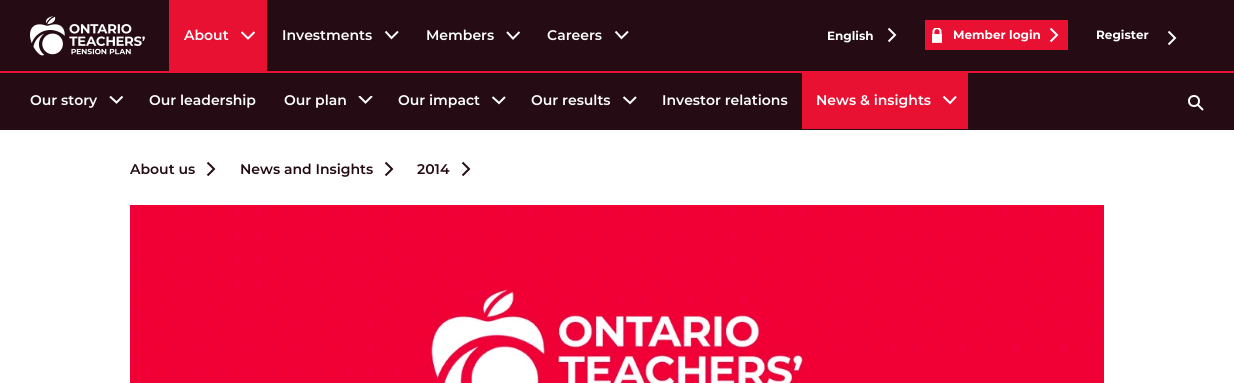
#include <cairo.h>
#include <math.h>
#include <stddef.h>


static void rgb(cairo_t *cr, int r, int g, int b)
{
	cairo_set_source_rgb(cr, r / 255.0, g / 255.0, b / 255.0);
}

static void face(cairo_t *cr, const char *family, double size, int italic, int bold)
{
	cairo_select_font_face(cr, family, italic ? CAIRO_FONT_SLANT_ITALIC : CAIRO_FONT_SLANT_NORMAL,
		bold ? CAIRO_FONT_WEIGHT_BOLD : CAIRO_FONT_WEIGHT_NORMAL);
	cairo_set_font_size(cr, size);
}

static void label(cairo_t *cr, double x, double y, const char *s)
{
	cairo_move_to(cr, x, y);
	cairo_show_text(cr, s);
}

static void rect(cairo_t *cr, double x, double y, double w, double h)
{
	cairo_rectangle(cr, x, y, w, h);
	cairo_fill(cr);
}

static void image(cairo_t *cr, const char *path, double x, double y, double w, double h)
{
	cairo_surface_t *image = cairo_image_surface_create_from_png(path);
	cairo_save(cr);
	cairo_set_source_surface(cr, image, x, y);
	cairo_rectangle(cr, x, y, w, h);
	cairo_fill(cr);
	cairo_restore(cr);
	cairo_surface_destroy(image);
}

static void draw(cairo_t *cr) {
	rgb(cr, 255, 255, 255);
	cairo_paint(cr);
	rgb(cr, 36, 11, 20);
	rect(cr, 0, 0, 1234, 130);
	image(cr, "image0.png", 30, 16, 115, 40);
	rgb(cr, 232, 17, 50);
	rect(cr, 169, 0, 98, 71);
	face(cr, "Montserrat SemiBold", 14, 0, 0);
	rgb(cr, 255, 255, 255);
	label(cr, 184, 40, "About");
	cairo_save(cr);
	cairo_new_path(cr);
	cairo_move_to(cr, 255, 31);
	cairo_line_to(cr, 255, 39.5);
	cairo_line_to(cr, 241, 39.5);
	cairo_line_to(cr, 241, 31);
	cairo_close_path(cr);
	cairo_clip(cr);
	cairo_new_path(cr);
	cairo_move_to(cr, 254.5, 32);
	cairo_line_to(cr, 248, 38.5);
	cairo_line_to(cr, 241.5, 32);
	cairo_stroke(cr);
	cairo_restore(cr);
	label(cr, 282, 40, "Investments");
	cairo_save(cr);
	cairo_new_path(cr);
	cairo_move_to(cr, 398.5, 31);
	cairo_line_to(cr, 398.5, 39.5);
	cairo_line_to(cr, 384.5, 39.5);
	cairo_line_to(cr, 384.5, 31);
	cairo_close_path(cr);
	cairo_clip(cr);
	cairo_new_path(cr);
	cairo_move_to(cr, 398, 31.5);
	cairo_line_to(cr, 391.5, 38);
	cairo_line_to(cr, 385.5, 31.5);
	cairo_stroke(cr);
	cairo_restore(cr);
	label(cr, 426, 40, "Members");
	cairo_new_path(cr);
	cairo_move_to(cr, 519.5, 32);
	cairo_line_to(cr, 513, 38.5);
	cairo_line_to(cr, 507, 32);
	cairo_stroke(cr);
	label(cr, 547, 40, "Careers");
	cairo_save(cr);
	cairo_new_path(cr);
	cairo_move_to(cr, 628.5, 31);
	cairo_line_to(cr, 628.5, 39.5);
	cairo_line_to(cr, 614.5, 39.5);
	cairo_line_to(cr, 614.5, 31);
	cairo_close_path(cr);
	cairo_clip(cr);
	cairo_new_path(cr);
	cairo_move_to(cr, 628, 31.5);
	cairo_line_to(cr, 621.5, 38);
	cairo_line_to(cr, 615.5, 31.5);
	cairo_stroke(cr);
	cairo_restore(cr);
	face(cr, "Montserrat", 12, 0, 1);
	label(cr, 827, 40, "English");
	cairo_new_path(cr);
	cairo_move_to(cr, 888.5, 28.5);
	cairo_line_to(cr, 895, 35);
	cairo_line_to(cr, 888.5, 41.5);
	cairo_stroke(cr);
	rgb(cr, 232, 17, 50);
	rect(cr, 925, 20, 143, 30);
	image(cr, "image1.png", 932, 28, 10, 15);
	rgb(cr, 255, 255, 255);
	label(cr, 953, 39, "Member login");
	cairo_new_path(cr);
	cairo_move_to(cr, 1050.5, 28.5);
	cairo_line_to(cr, 1057, 35);
	cairo_line_to(cr, 1050.5, 41.5);
	cairo_stroke(cr);
	label(cr, 1096, 39, "Register");
	cairo_new_path(cr);
	cairo_move_to(cr, 1168.5, 31.5);
	cairo_line_to(cr, 1175, 38);
	cairo_line_to(cr, 1168.5, 44.5);
	cairo_stroke(cr);
	rgb(cr, 232, 17, 50);
	rect(cr, 0, 71, 1234, 2);
	face(cr, "Montserrat SemiBold", 14, 0, 0);
	rgb(cr, 255, 255, 255);
	label(cr, 30, 105, "Our story");
	cairo_new_path(cr);
	cairo_move_to(cr, 122.5, 96.5);
	cairo_line_to(cr, 116.5, 102.5);
	cairo_line_to(cr, 110, 96.5);
	cairo_stroke(cr);
	label(cr, 149, 105, "Our leadership");
	label(cr, 284, 105, "Our plan");
	cairo_save(cr);
	cairo_new_path(cr);
	cairo_move_to(cr, 372.5, 96);
	cairo_line_to(cr, 372.5, 104);
	cairo_line_to(cr, 358.5, 104);
	cairo_line_to(cr, 358.5, 96);
	cairo_close_path(cr);
	cairo_clip(cr);
	cairo_new_path(cr);
	cairo_move_to(cr, 372, 96);
	cairo_line_to(cr, 365.5, 102.5);
	cairo_line_to(cr, 359, 96);
	cairo_stroke(cr);
	cairo_restore(cr);
	label(cr, 398, 105, "Our impact");
	cairo_new_path(cr);
	cairo_move_to(cr, 505, 97);
	cairo_line_to(cr, 499, 103);
	cairo_line_to(cr, 492.5, 97);
	cairo_stroke(cr);
	label(cr, 531, 105, "Our results");
	cairo_new_path(cr);
	cairo_move_to(cr, 636, 97);
	cairo_line_to(cr, 630, 103);
	cairo_line_to(cr, 623.5, 97);
	cairo_stroke(cr);
	label(cr, 662, 105, "Investor relations");
	rgb(cr, 232, 17, 50);
	rect(cr, 802, 73, 166, 56);
	rgb(cr, 255, 255, 255);
	label(cr, 816, 105, "News & insights");
	cairo_new_path(cr);
	cairo_move_to(cr, 956, 96.5);
	cairo_line_to(cr, 950, 103);
	cairo_line_to(cr, 943.5, 96.5);
	cairo_stroke(cr);
	cairo_arc(cr, 1194, 101, 5, 0, 2 * M_PI);
	cairo_stroke(cr);
	cairo_new_path(cr);
	cairo_move_to(cr, 1197.5, 104.5);
	cairo_line_to(cr, 1203, 110);
	cairo_stroke(cr);
	rgb(cr, 36, 11, 20);
	label(cr, 130, 174, "About us");
	cairo_new_path(cr);
	cairo_move_to(cr, 207.5, 162.5);
	cairo_line_to(cr, 214, 169);
	cairo_line_to(cr, 207.5, 175.5);
	cairo_stroke(cr);
	label(cr, 240, 174, "News and Insights");
	cairo_new_path(cr);
	cairo_move_to(cr, 385.5, 162.5);
	cairo_line_to(cr, 392, 169);
	cairo_line_to(cr, 385.5, 175.5);
	cairo_stroke(cr);
	label(cr, 417, 174, "2014");
	cairo_new_path(cr);
	cairo_move_to(cr, 462.5, 162.5);
	cairo_line_to(cr, 469, 169);
	cairo_line_to(cr, 462.5, 175.5);
	cairo_stroke(cr);
	image(cr, "image2.png", 130, 205, 974, 178);
}

int main(void) {
	cairo_surface_t *surface = cairo_image_surface_create(CAIRO_FORMAT_RGB24, 1234, 383);
	cairo_t *cr = cairo_create(surface);
	cairo_font_options_t *options = cairo_font_options_create();
	cairo_font_options_set_hint_metrics(options, CAIRO_HINT_METRICS_OFF);
	cairo_font_options_set_hint_style(options, CAIRO_HINT_STYLE_NONE);
	cairo_set_font_options(cr, options);
	cairo_set_miter_limit(cr, 4);
	draw(cr);
	cairo_surface_write_to_png(surface, "render.png");
	cairo_font_options_destroy(options);
	cairo_destroy(cr);
	cairo_surface_destroy(surface);
	return 0;
}
